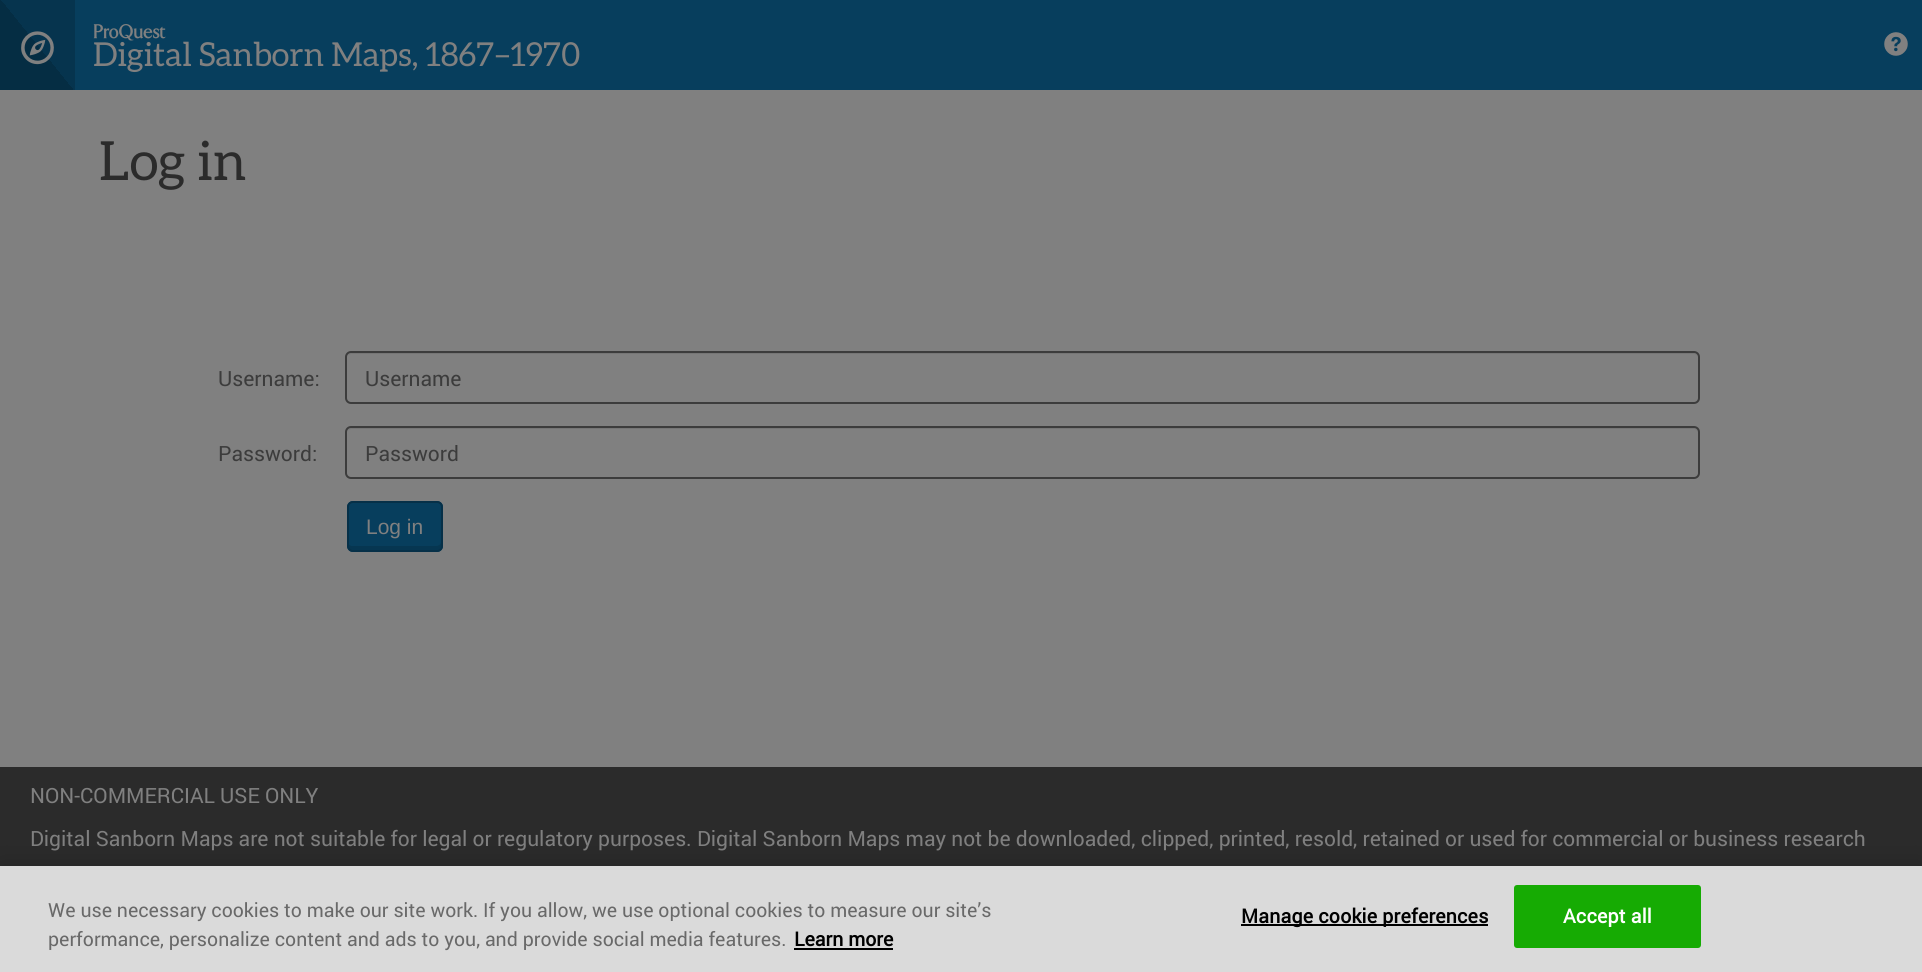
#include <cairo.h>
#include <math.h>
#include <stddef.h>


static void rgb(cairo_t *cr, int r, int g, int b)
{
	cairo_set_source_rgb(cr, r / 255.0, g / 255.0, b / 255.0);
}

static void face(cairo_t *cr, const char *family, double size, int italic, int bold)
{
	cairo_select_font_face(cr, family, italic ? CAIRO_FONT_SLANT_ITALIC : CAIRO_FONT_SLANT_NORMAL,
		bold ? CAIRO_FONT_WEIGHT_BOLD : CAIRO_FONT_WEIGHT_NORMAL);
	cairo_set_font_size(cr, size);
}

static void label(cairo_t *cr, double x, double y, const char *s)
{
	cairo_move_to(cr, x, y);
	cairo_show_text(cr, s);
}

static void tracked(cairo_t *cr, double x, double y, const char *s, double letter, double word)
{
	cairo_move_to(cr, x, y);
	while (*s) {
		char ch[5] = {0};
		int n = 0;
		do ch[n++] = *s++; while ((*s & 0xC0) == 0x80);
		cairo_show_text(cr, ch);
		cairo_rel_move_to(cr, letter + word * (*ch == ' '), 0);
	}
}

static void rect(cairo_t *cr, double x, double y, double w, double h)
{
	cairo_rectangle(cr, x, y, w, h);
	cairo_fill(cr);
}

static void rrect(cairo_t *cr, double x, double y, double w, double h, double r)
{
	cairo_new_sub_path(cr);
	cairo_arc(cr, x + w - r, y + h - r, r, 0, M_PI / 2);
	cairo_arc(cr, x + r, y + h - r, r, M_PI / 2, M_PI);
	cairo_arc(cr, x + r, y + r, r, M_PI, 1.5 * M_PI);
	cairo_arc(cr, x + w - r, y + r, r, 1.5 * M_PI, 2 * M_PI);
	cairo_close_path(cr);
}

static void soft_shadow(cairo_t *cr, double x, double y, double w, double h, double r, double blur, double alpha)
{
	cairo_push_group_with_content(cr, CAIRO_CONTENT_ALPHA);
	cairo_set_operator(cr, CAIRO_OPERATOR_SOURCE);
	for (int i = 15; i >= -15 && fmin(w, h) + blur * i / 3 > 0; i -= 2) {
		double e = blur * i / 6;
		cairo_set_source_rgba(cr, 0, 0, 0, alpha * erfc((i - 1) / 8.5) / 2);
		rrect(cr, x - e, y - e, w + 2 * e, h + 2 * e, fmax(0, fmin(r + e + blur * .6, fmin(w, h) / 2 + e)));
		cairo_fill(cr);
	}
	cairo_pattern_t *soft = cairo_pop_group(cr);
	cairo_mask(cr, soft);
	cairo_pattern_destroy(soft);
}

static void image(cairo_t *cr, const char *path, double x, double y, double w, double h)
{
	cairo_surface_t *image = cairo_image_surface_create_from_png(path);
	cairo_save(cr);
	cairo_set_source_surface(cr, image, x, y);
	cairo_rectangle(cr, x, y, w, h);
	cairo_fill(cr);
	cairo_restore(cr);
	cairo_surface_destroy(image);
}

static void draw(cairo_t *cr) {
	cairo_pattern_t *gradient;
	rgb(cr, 128, 128, 128);
	cairo_paint(cr);
	rgb(cr, 7, 62, 93);
	rect(cr, 75, 0, 1847, 90);
	gradient = cairo_pattern_create_linear(-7.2, 81, 82, 9);
	cairo_pattern_add_color_stop_rgba(gradient, 0, 0.02, 0.176, 0.263, 1);
	cairo_pattern_add_color_stop_rgba(gradient, 0.5, 0.02, 0.176, 0.263, 1);
	cairo_pattern_add_color_stop_rgba(gradient, 0.5, 0.024, 0.204, 0.306, 1);
	cairo_pattern_add_color_stop_rgba(gradient, 1, 0.024, 0.204, 0.306, 1);
	cairo_set_source(cr, gradient);
	cairo_pattern_destroy(gradient);
	rect(cr, 0, 0, 75, 90);
	image(cr, "image0.png", 21, 31, 33, 34);
	image(cr, "image1.png", 93, 24, 73, 17);
	face(cr, "Aleo", 33, 0, 0);
	rgb(cr, 128, 128, 128);
	label(cr, 93, 66, "Digital Sanborn Maps, 1867–1970");
	image(cr, "image2.png", 1884, 32, 24, 24);
	face(cr, "Aleo", 54, 0, 0);
	rgb(cr, 43, 43, 43);
	label(cr, 99, 180, "Log in");
	face(cr, "Roboto", 21, 0, 0);
	rgb(cr, 60, 60, 60);
	label(cr, 218, 386, "Username:");
	rgb(cr, 118, 118, 118);
	cairo_new_path(cr);
	cairo_move_to(cr, 351, 354);
	cairo_line_to(cr, 1694, 354);
	cairo_curve_to(cr, 1696, 354, 1698, 356, 1698, 358);
	cairo_curve_to(cr, 1698, 355, 1696, 353, 1693, 353);
	cairo_line_to(cr, 352, 353);
	cairo_curve_to(cr, 350, 353, 349, 354, 348, 355);
	cairo_close_path(cr);
	cairo_fill(cr);
	rrect(cr, 346, 352, 1353, 51, 5);
	rgb(cr, 60, 60, 60);
	cairo_stroke(cr);
	label(cr, 365, 386, "Username");
	label(cr, 218, 461, "Password:");
	rgb(cr, 118, 118, 118);
	cairo_new_path(cr);
	cairo_move_to(cr, 351, 429);
	cairo_line_to(cr, 1694, 429);
	cairo_curve_to(cr, 1696, 429, 1698, 431, 1698, 434);
	cairo_line_to(cr, 1698, 433);
	cairo_curve_to(cr, 1698, 430, 1696, 428, 1693, 428);
	cairo_line_to(cr, 352, 428);
	cairo_curve_to(cr, 350, 428, 349, 429, 348, 430);
	cairo_close_path(cr);
	cairo_fill(cr);
	rrect(cr, 346, 427, 1353, 51, 5);
	rgb(cr, 60, 60, 60);
	cairo_stroke(cr);
	label(cr, 365, 461, "Password");
	rgb(cr, 7, 62, 93);
	rrect(cr, 347, 501, 96, 51, 6);
	cairo_fill(cr);
	rgb(cr, 6, 54, 81);
	cairo_new_path(cr);
	cairo_move_to(cr, 348, 542);
	cairo_line_to(cr, 348, 546);
	cairo_curve_to(cr, 348, 549, 350, 551, 353, 551);
	cairo_line_to(cr, 436, 551);
	cairo_curve_to(cr, 439, 551, 441, 549, 441, 546);
	cairo_line_to(cr, 441, 542);
	cairo_curve_to(cr, 441, 544, 439, 546, 436, 546);
	cairo_line_to(cr, 352, 546);
	cairo_curve_to(cr, 350, 546, 348, 544, 348, 542);
	cairo_close_path(cr);
	cairo_fill(cr);
	rrect(cr, 348, 502, 94, 49, 5);
	rgb(cr, 6, 48, 72);
	cairo_stroke(cr);
	face(cr, "Liberation Sans", 21, 0, 0);
	rgb(cr, 128, 128, 128);
	label(cr, 366, 534, "Log in");
	rgb(cr, 43, 43, 43);
	rect(cr, 0, 767, 1922, 99);
	face(cr, "Roboto", 21, 0, 0);
	rgb(cr, 128, 128, 128);
	label(cr, 30, 803, "NON-COMMERCIAL USE ONLY");
	label(cr, 30, 846, "Digital Sanborn Maps are not suitable for legal or regulatory purposes. Digital Sanborn Maps may not be downloaded, clipped, printed, resold, retained or used for commercial or business research");
	rgb(cr, 0, 0, 0);
	soft_shadow(cr, 0, 866, 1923, 106, 0, 13.5, 0.2);
	rgb(cr, 218, 218, 218);
	rect(cr, 0, 866, 1922, 106);
	face(cr, "Roboto", 19.5, 0, 0);
	rgb(cr, 105, 105, 105);
	label(cr, 48, 917, "We use necessary cookies to make our site work. If you allow, we use optional cookies to measure our site’s");
	label(cr, 48, 946, "performance, personalize content and ads to you, and provide social media features.");
	face(cr, "Roboto", 19.5, 0, 1);
	rgb(cr, 0, 0, 0);
	label(cr, 794, 946, "Learn more");
	rect(cr, 794, 948, 99, 2);
	rect(cr, 1241, 924, 247, 2);
	tracked(cr, 1241, 923, "Manage cookie preferences", 0.2, 0);
	rgb(cr, 22, 171, 3);
	rrect(cr, 1515, 886, 185, 61, 2);
	cairo_fill_preserve(cr);
	cairo_stroke(cr);
	rgb(cr, 255, 255, 255);
	tracked(cr, 1563, 923, "Accept all", 0.2, 0);
}

int main(void) {
	cairo_surface_t *surface = cairo_image_surface_create(CAIRO_FORMAT_RGB24, 1922, 972);
	cairo_t *cr = cairo_create(surface);
	cairo_font_options_t *options = cairo_font_options_create();
	cairo_font_options_set_hint_metrics(options, CAIRO_HINT_METRICS_OFF);
	cairo_font_options_set_hint_style(options, CAIRO_HINT_STYLE_NONE);
	cairo_set_font_options(cr, options);
	cairo_set_miter_limit(cr, 4);
	draw(cr);
	cairo_surface_write_to_png(surface, "render.png");
	cairo_font_options_destroy(options);
	cairo_destroy(cr);
	cairo_surface_destroy(surface);
	return 0;
}
